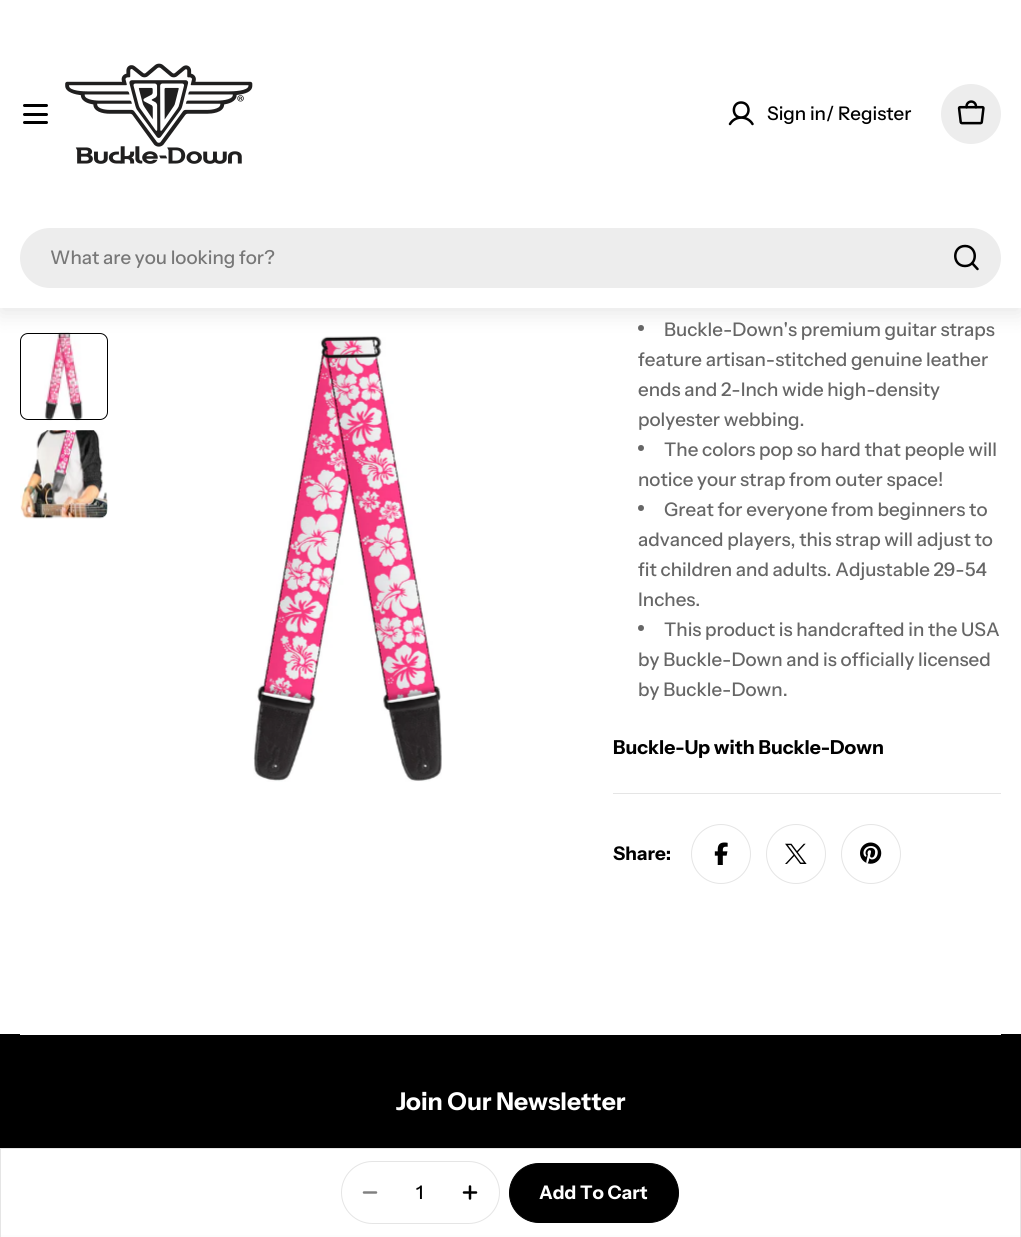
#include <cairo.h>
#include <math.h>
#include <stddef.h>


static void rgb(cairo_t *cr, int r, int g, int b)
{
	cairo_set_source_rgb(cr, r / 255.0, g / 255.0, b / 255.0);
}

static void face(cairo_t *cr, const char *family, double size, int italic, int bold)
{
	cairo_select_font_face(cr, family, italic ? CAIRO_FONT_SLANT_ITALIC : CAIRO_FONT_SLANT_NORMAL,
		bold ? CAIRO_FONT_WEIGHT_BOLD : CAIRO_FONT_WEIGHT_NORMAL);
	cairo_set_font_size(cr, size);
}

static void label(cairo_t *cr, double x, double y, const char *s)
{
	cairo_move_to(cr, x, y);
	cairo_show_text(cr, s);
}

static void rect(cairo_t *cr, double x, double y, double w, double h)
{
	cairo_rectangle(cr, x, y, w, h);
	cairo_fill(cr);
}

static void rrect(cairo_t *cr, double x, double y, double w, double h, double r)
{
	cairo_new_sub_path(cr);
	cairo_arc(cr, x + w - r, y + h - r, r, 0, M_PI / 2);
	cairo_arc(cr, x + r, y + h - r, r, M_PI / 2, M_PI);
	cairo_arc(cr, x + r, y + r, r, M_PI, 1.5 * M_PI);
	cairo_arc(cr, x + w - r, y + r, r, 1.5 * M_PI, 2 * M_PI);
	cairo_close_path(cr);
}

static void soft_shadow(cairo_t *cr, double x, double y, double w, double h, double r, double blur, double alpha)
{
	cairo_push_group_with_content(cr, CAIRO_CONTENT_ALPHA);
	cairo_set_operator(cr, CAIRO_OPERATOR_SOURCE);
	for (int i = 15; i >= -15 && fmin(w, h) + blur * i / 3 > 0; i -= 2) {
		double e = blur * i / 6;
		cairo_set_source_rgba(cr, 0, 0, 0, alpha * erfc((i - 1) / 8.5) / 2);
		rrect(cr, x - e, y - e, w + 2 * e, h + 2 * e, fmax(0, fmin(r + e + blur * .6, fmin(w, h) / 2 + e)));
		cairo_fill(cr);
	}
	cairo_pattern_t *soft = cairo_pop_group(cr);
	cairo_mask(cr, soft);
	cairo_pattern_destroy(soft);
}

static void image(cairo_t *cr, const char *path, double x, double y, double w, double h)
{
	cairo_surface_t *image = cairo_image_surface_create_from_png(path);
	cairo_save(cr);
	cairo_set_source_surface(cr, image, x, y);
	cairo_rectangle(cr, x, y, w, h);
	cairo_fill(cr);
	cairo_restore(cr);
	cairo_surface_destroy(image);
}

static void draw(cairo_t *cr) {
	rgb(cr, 255, 255, 255);
	cairo_paint(cr);
	image(cr, "image2.png", 44, 332, 39, 89);
	rrect(cr, 20.5, 333.5, 87, 86, 7.5);
	rgb(cr, 0, 0, 0);
	cairo_set_line_width(cr, 1);
	cairo_stroke(cr);
	image(cr, "image4.png", 253, 336, 189, 446);
	rgb(cr, 102, 102, 102);
	cairo_arc(cr, 641, 328, 3, 0, 2 * M_PI);
	cairo_fill(cr);
	rgb(cr, 0, 0, 0);
	soft_shadow(cr, 0, 5, 1021, 308, 0, 11, 0.1);
	rgb(cr, 255, 255, 255);
	rect(cr, 0, 0, 1021, 308);
	rgb(cr, 0, 0, 0);
	rrect(cr, 23, 113, 25, 3, 1.5);
	cairo_fill(cr);
	rrect(cr, 23, 104, 25, 3, 1.5);
	cairo_fill(cr);
	rrect(cr, 23, 121, 25, 3, 1.5);
	cairo_fill(cr);
	image(cr, "image0.png", 65, 63, 188, 101);
	cairo_new_path(cr);
	cairo_move_to(cr, 741, 117.5);
	cairo_curve_to(cr, 751, 117.5, 751, 102.5, 741, 102.5);
	cairo_curve_to(cr, 731.5, 102.5, 731.5, 117.5, 741, 117.5);
	cairo_close_path(cr);
	cairo_move_to(cr, 730, 124);
	cairo_curve_to(cr, 735, 115.5, 747.5, 115.5, 752.5, 124);
	cairo_set_line_width(cr, 2.5);
	cairo_set_line_cap(cr, CAIRO_LINE_CAP_ROUND);
	cairo_set_line_join(cr, CAIRO_LINE_JOIN_ROUND);
	cairo_stroke(cr);
	face(cr, "Instrument Sans Medium", 18.75, 0, 0);
	label(cr, 767, 120, "Sign in/ Register");
	rgb(cr, 237, 237, 237);
	cairo_new_path(cr);
	cairo_arc(cr, 971, 114, 30, 0, 2 * M_PI);
	cairo_fill(cr);
	image(cr, "image1.png", 957, 100, 28, 25);
	rrect(cr, 20, 228, 981, 60, 30);
	cairo_fill(cr);
	rgb(cr, 119, 119, 119);
	label(cr, 50, 264, "What are you looking for?");
	cairo_new_path(cr);
	cairo_move_to(cr, 965, 266);
	cairo_curve_to(cr, 978, 266, 978, 246, 965, 246);
	cairo_curve_to(cr, 952, 246, 952, 266, 965, 266);
	cairo_close_path(cr);
	cairo_move_to(cr, 972, 263);
	cairo_line_to(cr, 977.5, 269);
	rgb(cr, 0, 0, 0);
	cairo_stroke(cr);
	image(cr, "image3.png", 20, 430, 88, 89);
	rgb(cr, 102, 102, 102);
	label(cr, 664, 336, "Buckle-Down's premium guitar straps");
	label(cr, 638, 366, "feature artisan-stitched genuine leather");
	label(cr, 638, 396, "ends and 2-Inch wide high-density");
	label(cr, 638, 426, "polyester webbing.");
	cairo_new_path(cr);
	cairo_arc(cr, 641, 448, 3, 0, 2 * M_PI);
	cairo_fill(cr);
	label(cr, 664, 456, "The colors pop so hard that people will");
	label(cr, 638, 486, "notice your strap from outer space!");
	cairo_new_path(cr);
	cairo_arc(cr, 641, 508, 3, 0, 2 * M_PI);
	cairo_fill(cr);
	label(cr, 664, 516, "Great for everyone from beginners to");
	label(cr, 638, 546, "advanced players, this strap will adjust to");
	label(cr, 638, 576, "fit children and adults. Adjustable 29-54");
	label(cr, 638, 606, "Inches.");
	cairo_new_path(cr);
	cairo_arc(cr, 641, 628, 3, 0, 2 * M_PI);
	cairo_fill(cr);
	label(cr, 664, 636, "This product is handcrafted in the USA");
	label(cr, 638, 666, "by Buckle-Down and is officially licensed");
	label(cr, 638, 696, "by Buckle-Down.");
	face(cr, "Instrument Sans", 19.25, 0, 1);
	rgb(cr, 0, 0, 0);
	label(cr, 613, 754, "Buckle-Up with Buckle-Down");
	rgb(cr, 229, 229, 229);
	rect(cr, 613, 793, 388, 1);
	face(cr, "Instrument Sans", 18.75, 0, 1);
	rgb(cr, 0, 0, 0);
	label(cr, 613, 860, "Share:");
	cairo_new_path(cr);
	cairo_arc(cr, 721, 854, 29.5, 0, 2 * M_PI);
	rgb(cr, 229, 229, 229);
	cairo_set_line_width(cr, 1);
	cairo_set_line_cap(cr, CAIRO_LINE_CAP_BUTT);
	cairo_set_line_join(cr, CAIRO_LINE_JOIN_MITER);
	cairo_stroke(cr);
	image(cr, "image5.png", 714, 842, 14, 23);
	cairo_arc(cr, 796, 854, 29.5, 0, 2 * M_PI);
	cairo_stroke(cr);
	image(cr, "image6.png", 785, 843, 22, 21);
	cairo_arc(cr, 871, 854, 29.5, 0, 2 * M_PI);
	cairo_stroke(cr);
	image(cr, "image7.png", 860, 842, 22, 22);
	rgb(cr, 0, 0, 0);
	rect(cr, 0, 1034, 1021, 114);
	rgb(cr, 0, 0, 0);
	soft_shadow(cr, 0, 1140, 1021, 90, 0, 6, 0.05);
	rgb(cr, 255, 255, 255);
	rect(cr, 1, 1149, 1019, 86);
	cairo_rectangle(cr, 0.5, 1148.5, 1020, 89);
	rgb(cr, 229, 229, 229);
	cairo_stroke(cr);
	rrect(cr, 341.5, 1161.5, 158, 62, 31);
	cairo_stroke(cr);
	cairo_new_path(cr);
	cairo_move_to(cr, 364, 1192.5);
	cairo_line_to(cr, 376, 1192.5);
	rgb(cr, 128, 128, 128);
	cairo_set_line_width(cr, 2.5);
	cairo_set_line_cap(cr, CAIRO_LINE_CAP_ROUND);
	cairo_set_line_join(cr, CAIRO_LINE_JOIN_ROUND);
	cairo_stroke(cr);
	face(cr, "Instrument Sans Medium", 18.75, 0, 0);
	rgb(cr, 0, 0, 0);
	label(cr, 416, 1199, "1");
	cairo_new_path(cr);
	cairo_move_to(cr, 464, 1192.5);
	cairo_line_to(cr, 476, 1192.5);
	cairo_move_to(cr, 470, 1186.5);
	cairo_line_to(cr, 470, 1198.5);
	cairo_stroke(cr);
	rrect(cr, 509.5, 1163.5, 169, 59, 29.5);
	cairo_fill_preserve(cr);
	cairo_set_line_width(cr, 1);
	cairo_set_line_cap(cr, CAIRO_LINE_CAP_BUTT);
	cairo_set_line_join(cr, CAIRO_LINE_JOIN_MITER);
	cairo_stroke(cr);
	face(cr, "Instrument Sans", 18.75, 0, 1);
	rgb(cr, 255, 255, 255);
	label(cr, 539, 1199, "Add To Cart");
	rect(cr, 20, 1034, 981, 1);
	face(cr, "Instrument Sans", 24.5, 0, 1);
	label(cr, 396, 1110, "Join Our Newsletter");
}

int main(void) {
	cairo_surface_t *surface = cairo_image_surface_create(CAIRO_FORMAT_RGB24, 1021, 1237);
	cairo_t *cr = cairo_create(surface);
	cairo_font_options_t *options = cairo_font_options_create();
	cairo_font_options_set_hint_metrics(options, CAIRO_HINT_METRICS_OFF);
	cairo_font_options_set_hint_style(options, CAIRO_HINT_STYLE_NONE);
	cairo_set_font_options(cr, options);
	cairo_set_miter_limit(cr, 4);
	draw(cr);
	cairo_surface_write_to_png(surface, "render.png");
	cairo_font_options_destroy(options);
	cairo_destroy(cr);
	cairo_surface_destroy(surface);
	return 0;
}
